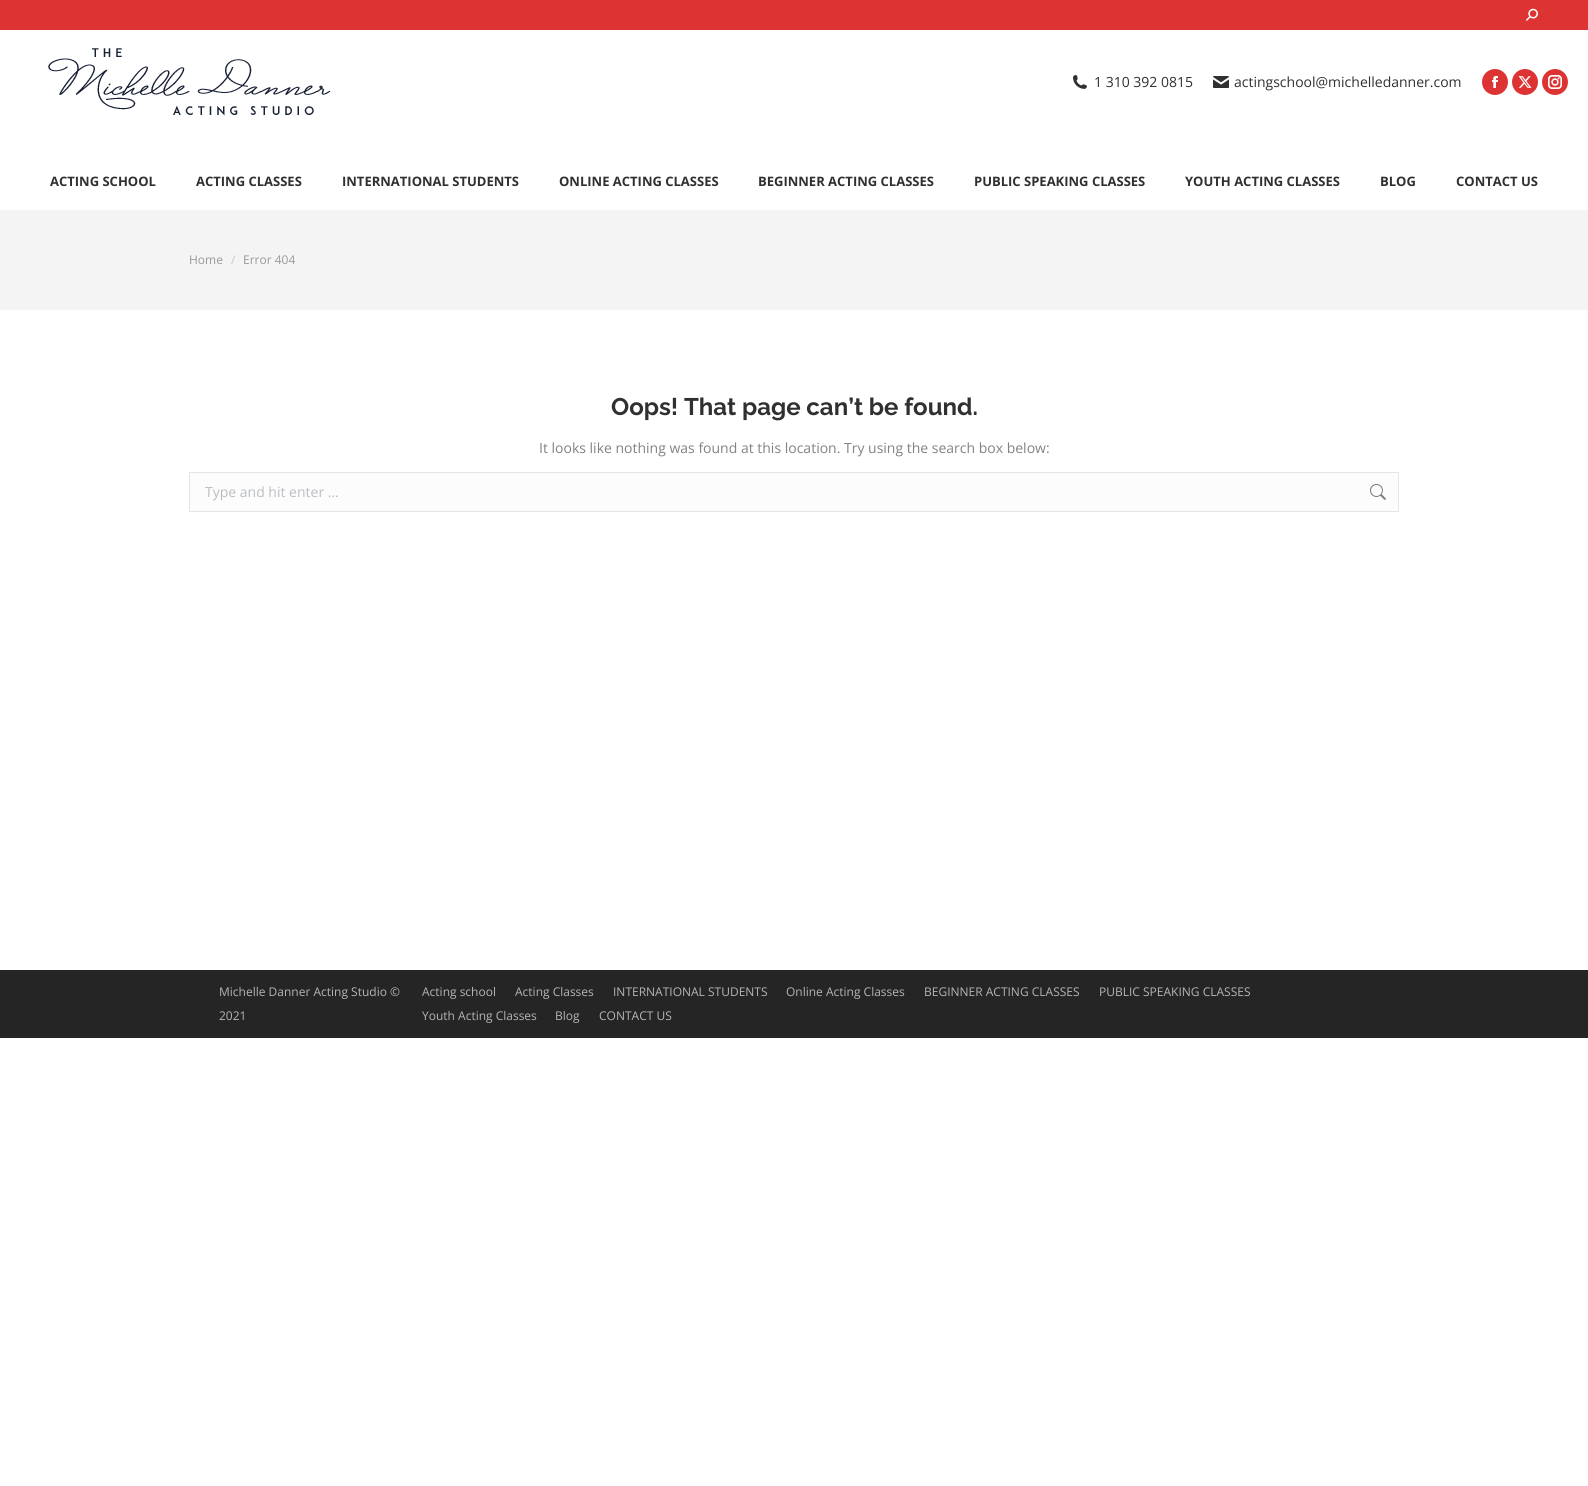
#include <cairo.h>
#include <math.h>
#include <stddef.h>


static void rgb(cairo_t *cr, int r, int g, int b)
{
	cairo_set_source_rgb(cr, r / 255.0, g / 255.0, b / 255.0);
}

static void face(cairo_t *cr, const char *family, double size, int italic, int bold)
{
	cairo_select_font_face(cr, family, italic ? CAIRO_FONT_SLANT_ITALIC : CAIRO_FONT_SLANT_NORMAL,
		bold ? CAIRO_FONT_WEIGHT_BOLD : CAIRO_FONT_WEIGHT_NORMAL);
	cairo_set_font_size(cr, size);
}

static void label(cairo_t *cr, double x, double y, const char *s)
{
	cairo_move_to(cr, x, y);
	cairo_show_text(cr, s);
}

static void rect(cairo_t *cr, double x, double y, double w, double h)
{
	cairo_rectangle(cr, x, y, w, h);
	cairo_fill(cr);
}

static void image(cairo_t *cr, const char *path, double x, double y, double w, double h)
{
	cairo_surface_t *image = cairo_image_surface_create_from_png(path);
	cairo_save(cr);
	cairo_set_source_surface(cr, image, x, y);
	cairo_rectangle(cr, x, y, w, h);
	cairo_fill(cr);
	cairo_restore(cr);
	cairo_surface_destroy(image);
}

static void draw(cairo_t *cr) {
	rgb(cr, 255, 255, 255);
	cairo_paint(cr);
	rgb(cr, 221, 51, 51);
	rect(cr, 0, 0, 1588, 30);
	image(cr, "image0.png", 1526, 8, 12, 13);
	image(cr, "image1.png", 48, 48, 283, 68);
	image(cr, "image2.png", 1073, 75, 14, 14);
	face(cr, "Open Sans", 14, 0, 0);
	rgb(cr, 48, 48, 48);
	label(cr, 1094, 87, "1 310 392 0815");
	image(cr, "image3.png", 1213, 76, 16, 12);
	label(cr, 1234, 87, "actingschool@michelledanner.com");
	rgb(cr, 221, 51, 51);
	cairo_new_path(cr);
	cairo_arc(cr, 1495, 82, 13, 0, 2 * M_PI);
	cairo_fill(cr);
	image(cr, "image4.png", 1492, 76, 6, 12);
	cairo_arc(cr, 1525, 82, 13, 0, 2 * M_PI);
	cairo_fill(cr);
	image(cr, "image5.png", 1518, 76, 14, 12);
	cairo_arc(cr, 1555, 82, 13, 0, 2 * M_PI);
	cairo_fill(cr);
	image(cr, "image6.png", 1548, 75, 14, 14);
	face(cr, "Open Sans", 13, 0, 1);
	rgb(cr, 48, 48, 48);
	label(cr, 50, 186, "ACTING SCHOOL");
	label(cr, 196, 186, "ACTING CLASSES");
	label(cr, 342, 186, "INTERNATIONAL STUDENTS");
	label(cr, 559, 186, "ONLINE ACTING CLASSES");
	label(cr, 758, 186, "BEGINNER ACTING CLASSES");
	label(cr, 974, 186, "PUBLIC SPEAKING CLASSES");
	label(cr, 1185, 186, "YOUTH ACTING CLASSES");
	label(cr, 1380, 186, "BLOG");
	label(cr, 1456, 186, "CONTACT US");
	rgb(cr, 244, 244, 244);
	rect(cr, 0, 210, 1588, 100);
	face(cr, "Open Sans", 12, 0, 0);
	rgb(cr, 153, 153, 153);
	label(cr, 189, 264, "Home");
	rgb(cr, 199, 199, 199);
	label(cr, 231, 264, "/");
	rgb(cr, 153, 153, 153);
	label(cr, 243, 264, "Error 404");
	face(cr, "Raleway", 24, 0, 1);
	rgb(cr, 48, 48, 48);
	label(cr, 611, 415, "Oops! That page can’t be found.");
	face(cr, "Open Sans", 14, 0, 0);
	rgb(cr, 130, 130, 130);
	label(cr, 539, 453, "It looks like nothing was found at this location. Try using the search box below:");
	rgb(cr, 252, 252, 252);
	cairo_rectangle(cr, 189.5, 472.5, 1209, 39);
	cairo_fill_preserve(cr);
	rgb(cr, 228, 229, 231);
	cairo_set_line_width(cr, 1);
	cairo_stroke(cr);
	rgb(cr, 186, 189, 193);
	label(cr, 205, 497, "Type and hit enter …");
	image(cr, "image7.png", 1370, 484, 16, 16);
	rgb(cr, 37, 37, 37);
	rect(cr, 0, 970, 1588, 68);
	face(cr, "Open Sans", 12, 0, 0);
	rgb(cr, 179, 181, 182);
	label(cr, 219, 996, "Michelle Danner Acting Studio ©");
	label(cr, 219, 1020, "2021");
	label(cr, 422, 996, "Acting school");
	label(cr, 515, 996, "Acting Classes");
	label(cr, 613, 996, "INTERNATIONAL STUDENTS");
	label(cr, 786, 996, "Online Acting Classes");
	label(cr, 924, 996, "BEGINNER ACTING CLASSES");
	label(cr, 1099, 996, "PUBLIC SPEAKING CLASSES");
	label(cr, 422, 1020, "Youth Acting Classes");
	label(cr, 555, 1020, "Blog");
	label(cr, 599, 1020, "CONTACT US");
}

int main(void) {
	cairo_surface_t *surface = cairo_image_surface_create(CAIRO_FORMAT_RGB24, 1588, 1486);
	cairo_t *cr = cairo_create(surface);
	cairo_font_options_t *options = cairo_font_options_create();
	cairo_font_options_set_hint_metrics(options, CAIRO_HINT_METRICS_OFF);
	cairo_font_options_set_hint_style(options, CAIRO_HINT_STYLE_NONE);
	cairo_set_font_options(cr, options);
	cairo_set_miter_limit(cr, 4);
	draw(cr);
	cairo_surface_write_to_png(surface, "render.png");
	cairo_font_options_destroy(options);
	cairo_destroy(cr);
	cairo_surface_destroy(surface);
	return 0;
}
